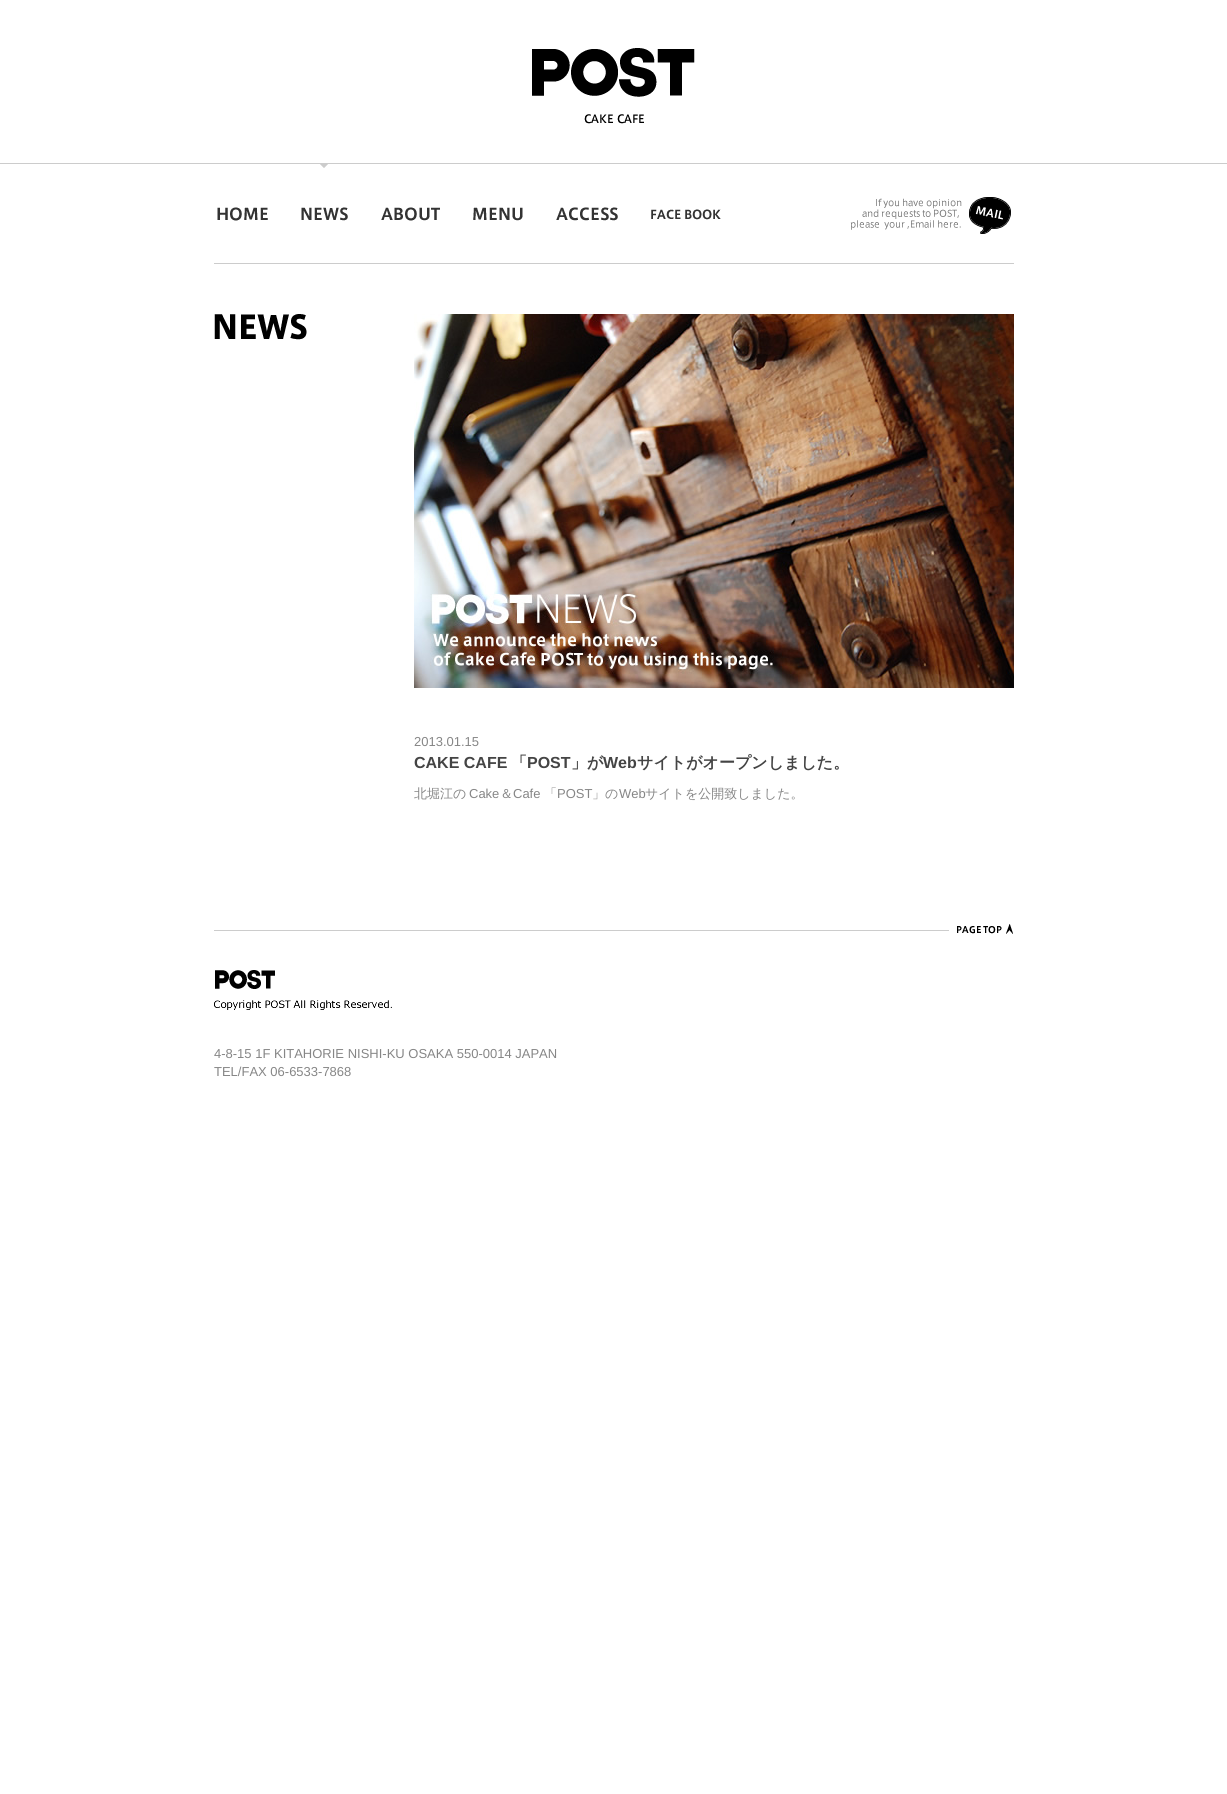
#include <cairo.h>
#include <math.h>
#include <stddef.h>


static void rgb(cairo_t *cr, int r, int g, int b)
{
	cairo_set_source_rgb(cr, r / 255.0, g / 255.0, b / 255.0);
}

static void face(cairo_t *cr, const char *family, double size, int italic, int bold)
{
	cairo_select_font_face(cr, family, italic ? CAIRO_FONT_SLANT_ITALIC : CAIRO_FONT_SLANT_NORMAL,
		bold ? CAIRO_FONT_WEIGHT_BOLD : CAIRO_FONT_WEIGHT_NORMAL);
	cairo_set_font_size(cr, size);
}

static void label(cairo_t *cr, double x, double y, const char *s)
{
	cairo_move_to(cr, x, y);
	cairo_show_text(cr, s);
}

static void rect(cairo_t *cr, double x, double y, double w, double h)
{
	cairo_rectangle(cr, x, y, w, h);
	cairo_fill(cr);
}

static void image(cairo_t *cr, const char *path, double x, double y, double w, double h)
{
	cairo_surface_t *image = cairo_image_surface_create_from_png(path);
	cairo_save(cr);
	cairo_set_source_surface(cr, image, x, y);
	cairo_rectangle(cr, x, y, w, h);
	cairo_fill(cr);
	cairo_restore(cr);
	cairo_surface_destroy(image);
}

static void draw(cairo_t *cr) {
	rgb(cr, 255, 255, 255);
	cairo_paint(cr);
	rgb(cr, 204, 204, 204);
	rect(cr, 0, 163, 1227, 1);
	image(cr, "image0.png", 532, 48, 163, 76);
	image(cr, "image1.png", 217, 207, 51, 14);
	image(cr, "image2.png", 320, 164, 8, 4);
	image(cr, "image3.png", 301, 207, 47, 14);
	image(cr, "image4.png", 381, 207, 59, 14);
	image(cr, "image5.png", 473, 207, 50, 14);
	image(cr, "image6.png", 556, 207, 62, 14);
	image(cr, "image7.png", 651, 209, 70, 11);
	image(cr, "image8.png", 850, 197, 161, 37);
	rect(cr, 214, 263, 800, 1);
	image(cr, "image9.png", 214, 314, 93, 26);
	image(cr, "image10.png", 414, 314, 600, 374);
	face(cr, "Liberation Sans", 13, 0, 0);
	rgb(cr, 134, 134, 134);
	label(cr, 414, 746, "2013.01.15");
	face(cr, "Liberation Sans", 16, 0, 1);
	rgb(cr, 68, 68, 68);
	label(cr, 414, 768, "CAKE CAFE");
	face(cr, "WenQuanYi Zen Hei", 16, 0, 1);
	label(cr, 511, 768, "「");
	face(cr, "Liberation Sans", 16, 0, 1);
	label(cr, 527, 768, "POST");
	face(cr, "WenQuanYi Zen Hei", 16, 0, 1);
	label(cr, 571, 768, "」が");
	face(cr, "Liberation Sans", 16, 0, 1);
	label(cr, 603, 768, "Web");
	face(cr, "WenQuanYi Zen Hei", 16, 0, 1);
	label(cr, 637, 768, "サイトがオープンしました。");
	face(cr, "WenQuanYi Zen Hei Medium", 13, 0, 0);
	rgb(cr, 134, 134, 134);
	label(cr, 414, 798, "北堀江の");
	face(cr, "Liberation Sans", 13, 0, 0);
	label(cr, 469, 798, "Cake");
	face(cr, "WenQuanYi Zen Hei Medium", 13, 0, 0);
	label(cr, 500, 798, "＆");
	face(cr, "Liberation Sans", 13, 0, 0);
	label(cr, 513, 798, "Cafe");
	face(cr, "WenQuanYi Zen Hei Medium", 13, 0, 0);
	label(cr, 544, 798, "「");
	face(cr, "Liberation Sans", 13, 0, 0);
	label(cr, 557, 798, "POST");
	face(cr, "WenQuanYi Zen Hei Medium", 13, 0, 0);
	label(cr, 592, 798, "」の");
	face(cr, "Liberation Sans", 13, 0, 0);
	label(cr, 619, 798, "Web");
	face(cr, "WenQuanYi Zen Hei Medium", 13, 0, 0);
	label(cr, 645, 798, "サイトを公開致しました。");
	rgb(cr, 204, 204, 204);
	rect(cr, 214, 930, 735, 1);
	image(cr, "image11.png", 949, 924, 65, 10);
	image(cr, "image12.png", 214, 970, 178, 40);
	face(cr, "Liberation Sans", 13, 0, 0);
	rgb(cr, 134, 134, 134);
	label(cr, 214, 1058, "4-8-15 1F KITAHORIE NISHI-KU OSAKA 550-0014 JAPAN");
	label(cr, 214, 1076, "TEL/FAX 06-6533-7868");
}

int main(void) {
	cairo_surface_t *surface = cairo_image_surface_create(CAIRO_FORMAT_RGB24, 1227, 1794);
	cairo_t *cr = cairo_create(surface);
	cairo_font_options_t *options = cairo_font_options_create();
	cairo_font_options_set_hint_metrics(options, CAIRO_HINT_METRICS_OFF);
	cairo_font_options_set_hint_style(options, CAIRO_HINT_STYLE_NONE);
	cairo_set_font_options(cr, options);
	cairo_set_miter_limit(cr, 4);
	draw(cr);
	cairo_surface_write_to_png(surface, "render.png");
	cairo_font_options_destroy(options);
	cairo_destroy(cr);
	cairo_surface_destroy(surface);
	return 0;
}
